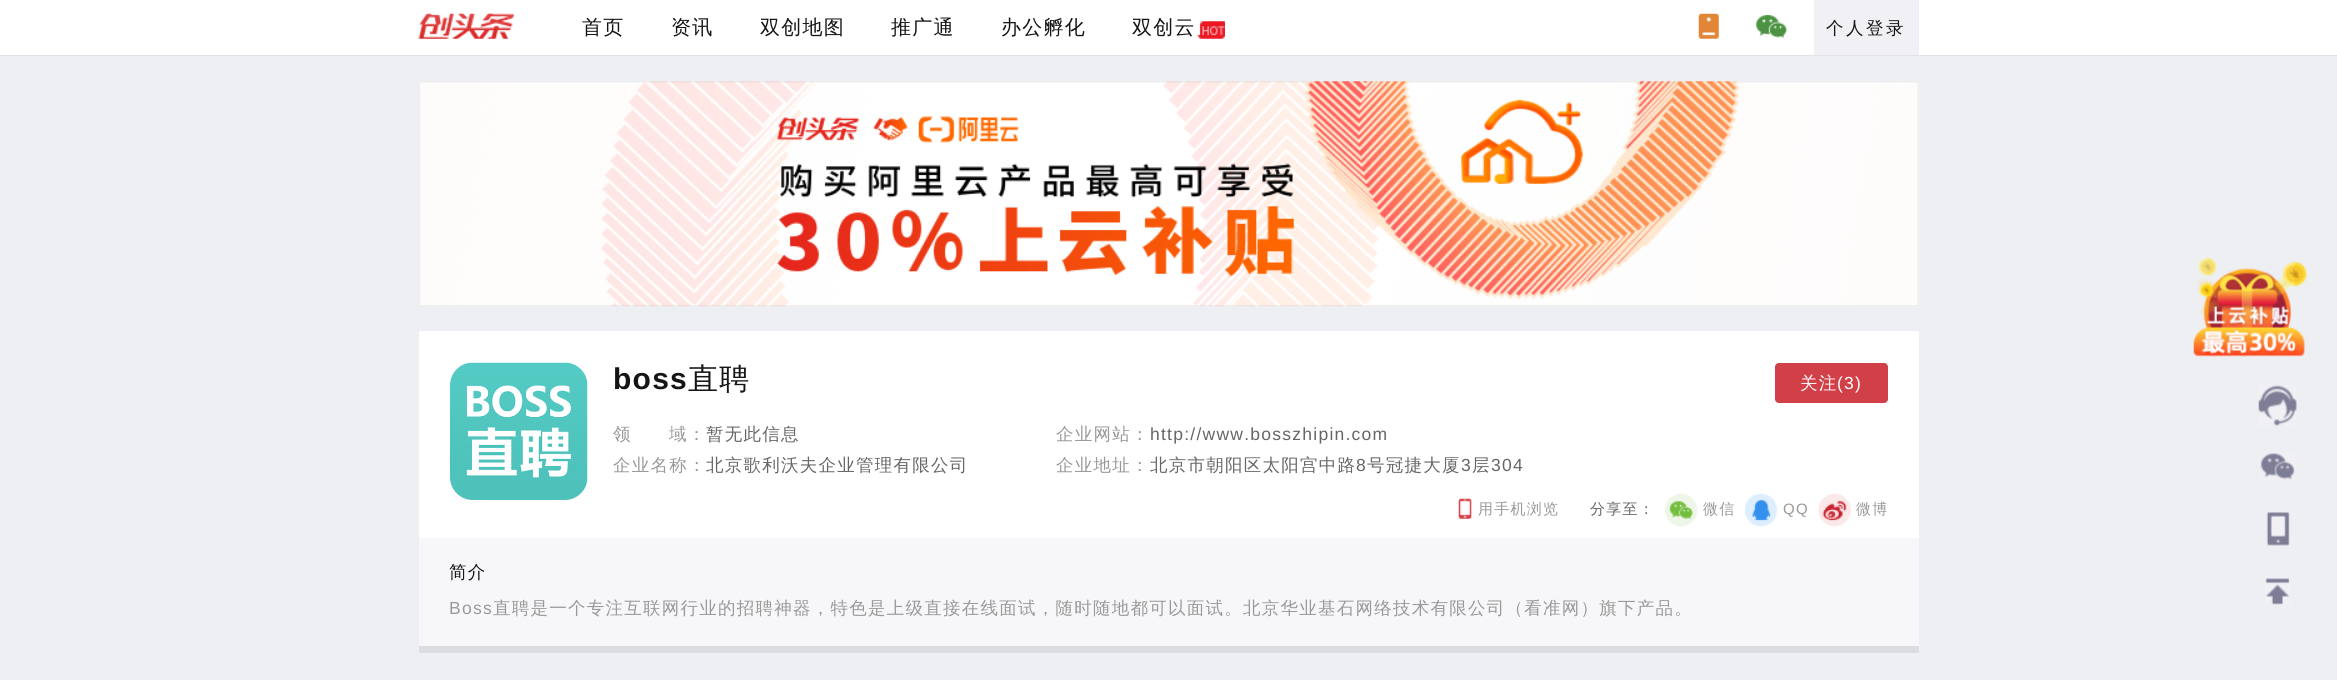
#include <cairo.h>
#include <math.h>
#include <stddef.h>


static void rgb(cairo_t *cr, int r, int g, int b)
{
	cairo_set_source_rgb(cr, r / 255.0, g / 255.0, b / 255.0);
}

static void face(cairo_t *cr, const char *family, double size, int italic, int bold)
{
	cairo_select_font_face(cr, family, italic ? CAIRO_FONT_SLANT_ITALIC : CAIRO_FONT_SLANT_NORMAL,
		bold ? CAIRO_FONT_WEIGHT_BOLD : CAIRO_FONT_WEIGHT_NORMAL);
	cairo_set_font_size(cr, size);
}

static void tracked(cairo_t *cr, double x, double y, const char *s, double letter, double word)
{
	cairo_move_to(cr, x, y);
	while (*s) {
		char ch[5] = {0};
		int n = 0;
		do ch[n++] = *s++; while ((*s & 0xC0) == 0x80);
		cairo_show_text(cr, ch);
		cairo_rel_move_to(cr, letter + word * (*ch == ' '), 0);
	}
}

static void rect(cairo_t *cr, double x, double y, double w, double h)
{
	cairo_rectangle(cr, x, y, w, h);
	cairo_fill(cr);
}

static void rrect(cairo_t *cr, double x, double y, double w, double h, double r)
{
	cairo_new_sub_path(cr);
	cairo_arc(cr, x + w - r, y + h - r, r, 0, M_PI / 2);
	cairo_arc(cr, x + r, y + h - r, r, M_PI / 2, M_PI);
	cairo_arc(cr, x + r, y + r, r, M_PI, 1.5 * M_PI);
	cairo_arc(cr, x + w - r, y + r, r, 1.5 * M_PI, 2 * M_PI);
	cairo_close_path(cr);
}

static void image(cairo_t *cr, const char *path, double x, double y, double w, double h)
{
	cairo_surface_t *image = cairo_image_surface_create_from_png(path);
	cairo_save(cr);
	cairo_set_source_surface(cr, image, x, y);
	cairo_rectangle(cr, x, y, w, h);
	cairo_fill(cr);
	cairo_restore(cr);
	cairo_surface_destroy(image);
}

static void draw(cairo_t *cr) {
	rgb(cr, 255, 255, 255);
	cairo_paint(cr);
	rgb(cr, 226, 226, 235);
	rect(cr, 0, 55, 2337, 1);
	image(cr, "image0.png", 418, 13, 96, 26);
	face(cr, "WenQuanYi Zen Hei Medium", 20, 0, 0);
	rgb(cr, 21, 21, 21);
	tracked(cr, 582, 34, "首页", 1.25, 0);
	tracked(cr, 671, 34, "资讯", 1.25, 0);
	tracked(cr, 760, 34, "双创地图", 1.25, 0);
	tracked(cr, 891, 34, "推广通", 1.25, 0);
	tracked(cr, 1001, 34, "办公孵化", 1.25, 0);
	tracked(cr, 1132, 34, "双创云", 1.25, 0);
	image(cr, "image1.png", 1197, 21, 28, 18);
	image(cr, "image2.png", 1698, 13, 21, 26);
	image(cr, "image3.png", 1756, 14, 31, 24);
	rgb(cr, 240, 240, 245);
	rect(cr, 1814, 0, 105, 55);
	face(cr, "WenQuanYi Zen Hei Medium", 17.5, 0, 0);
	rgb(cr, 21, 21, 21);
	tracked(cr, 1826, 34, "个人登录", 2.5, 0);
	rgb(cr, 238, 239, 243);
	rect(cr, 0, 56, 2337, 624);
	image(cr, "image4.png", 419, 81, 1499, 226);
	rgb(cr, 255, 255, 255);
	rect(cr, 419, 331, 1500, 207);
	image(cr, "image5.png", 450, 362, 138, 138);
	face(cr, "Liberation Sans", 30, 0, 1);
	rgb(cr, 21, 21, 21);
	tracked(cr, 613, 389, "boss", 1.25, 0);
	face(cr, "WenQuanYi Zen Hei Medium", 30, 0, 0);
	tracked(cr, 688, 389, "直聘", 1.25, 0);
	face(cr, "WenQuanYi Zen Hei Medium", 17.5, 0, 0);
	rgb(cr, 153, 153, 153);
	tracked(cr, 613, 440, "领", 1.25, 0);
	tracked(cr, 669, 440, "域：", 1.25, 0);
	rgb(cr, 102, 102, 102);
	tracked(cr, 706, 440, "暂无此信息", 1.25, 0);
	rgb(cr, 153, 153, 153);
	tracked(cr, 1056, 440, "企业网站：", 1.25, 0);
	face(cr, "Liberation Sans", 17.5, 0, 0);
	rgb(cr, 102, 102, 102);
	tracked(cr, 1150, 440, "http://www.bosszhipin.com", 1.25, 0);
	face(cr, "WenQuanYi Zen Hei Medium", 17.5, 0, 0);
	rgb(cr, 153, 153, 153);
	tracked(cr, 613, 471, "企业名称：", 1.25, 0);
	rgb(cr, 102, 102, 102);
	tracked(cr, 706, 471, "北京歌利沃夫企业管理有限公司", 1.25, 0);
	rgb(cr, 153, 153, 153);
	tracked(cr, 1056, 471, "企业地址：", 1.25, 0);
	rgb(cr, 102, 102, 102);
	tracked(cr, 1150, 471, "北京市朝阳区太阳宫中路", 1.25, 0);
	face(cr, "Liberation Sans", 17.5, 0, 0);
	tracked(cr, 1356, 471, "8", 1.25, 0);
	face(cr, "WenQuanYi Zen Hei Medium", 17.5, 0, 0);
	tracked(cr, 1367, 471, "号冠捷大厦", 1.25, 0);
	face(cr, "Liberation Sans", 17.5, 0, 0);
	tracked(cr, 1461, 471, "3", 1.25, 0);
	face(cr, "WenQuanYi Zen Hei Medium", 17.5, 0, 0);
	tracked(cr, 1472, 471, "层", 1.25, 0);
	face(cr, "Liberation Sans", 17.5, 0, 0);
	tracked(cr, 1491, 471, "304", 1.25, 0);
	rgb(cr, 209, 64, 72);
	rrect(cr, 1775, 363, 113, 40, 4);
	cairo_fill(cr);
	face(cr, "WenQuanYi Zen Hei Medium", 17.5, 0, 0);
	rgb(cr, 255, 255, 255);
	tracked(cr, 1800, 389, "关注", 1.25, 0);
	face(cr, "Liberation Sans", 17.5, 0, 0);
	tracked(cr, 1837, 389, "(3)", 1.25, 0);
	image(cr, "image6.png", 1458, 498, 14, 21);
	face(cr, "WenQuanYi Zen Hei Medium", 15, 0, 0);
	rgb(cr, 153, 153, 153);
	tracked(cr, 1478, 514, "用手机浏览", 1.25, 0);
	rgb(cr, 102, 102, 102);
	tracked(cr, 1590, 514, "分享至：", 1.25, 0);
	image(cr, "image7.png", 1665, 493, 33, 34);
	rgb(cr, 153, 153, 153);
	tracked(cr, 1703, 514, "微信", 1.25, 0);
	image(cr, "image8.png", 1745, 493, 33, 34);
	face(cr, "Liberation Sans", 15, 0, 0);
	tracked(cr, 1783, 514, "QQ", 1.25, 0);
	image(cr, "image9.png", 1818, 493, 34, 34);
	face(cr, "WenQuanYi Zen Hei Medium", 15, 0, 0);
	tracked(cr, 1856, 514, "微博", 1.25, 0);
	rgb(cr, 247, 247, 250);
	rect(cr, 419, 538, 1500, 108);
	rgb(cr, 220, 221, 225);
	rect(cr, 419, 646, 1500, 7);
	face(cr, "WenQuanYi Zen Hei Medium", 17.5, 0, 0);
	rgb(cr, 21, 21, 21);
	tracked(cr, 449, 578, "简介", 1.25, 0);
	face(cr, "Liberation Sans", 17.5, 0, 0);
	rgb(cr, 153, 153, 153);
	tracked(cr, 449, 614, "Boss", 1.25, 0);
	face(cr, "WenQuanYi Zen Hei Medium", 17.5, 0, 0);
	tracked(cr, 493, 614, "直聘是一个专注互联网行业的招聘神器，特色是上级直接在线面试，随时随地都可以面试。北京华业基石网络技术有限公司（看准网）旗下产品。", 1.25, 0);
	image(cr, "image10.png", 2193, 257, 114, 100);
	image(cr, "image11.png", 2258, 385, 39, 41);
	image(cr, "image12.png", 2260, 453, 35, 27);
	image(cr, "image13.png", 2266, 512, 24, 34);
	image(cr, "image14.png", 2265, 578, 25, 27);
}

int main(void) {
	cairo_surface_t *surface = cairo_image_surface_create(CAIRO_FORMAT_RGB24, 2337, 680);
	cairo_t *cr = cairo_create(surface);
	cairo_font_options_t *options = cairo_font_options_create();
	cairo_font_options_set_hint_metrics(options, CAIRO_HINT_METRICS_OFF);
	cairo_font_options_set_hint_style(options, CAIRO_HINT_STYLE_NONE);
	cairo_set_font_options(cr, options);
	cairo_set_miter_limit(cr, 4);
	draw(cr);
	cairo_surface_write_to_png(surface, "render.png");
	cairo_font_options_destroy(options);
	cairo_destroy(cr);
	cairo_surface_destroy(surface);
	return 0;
}
